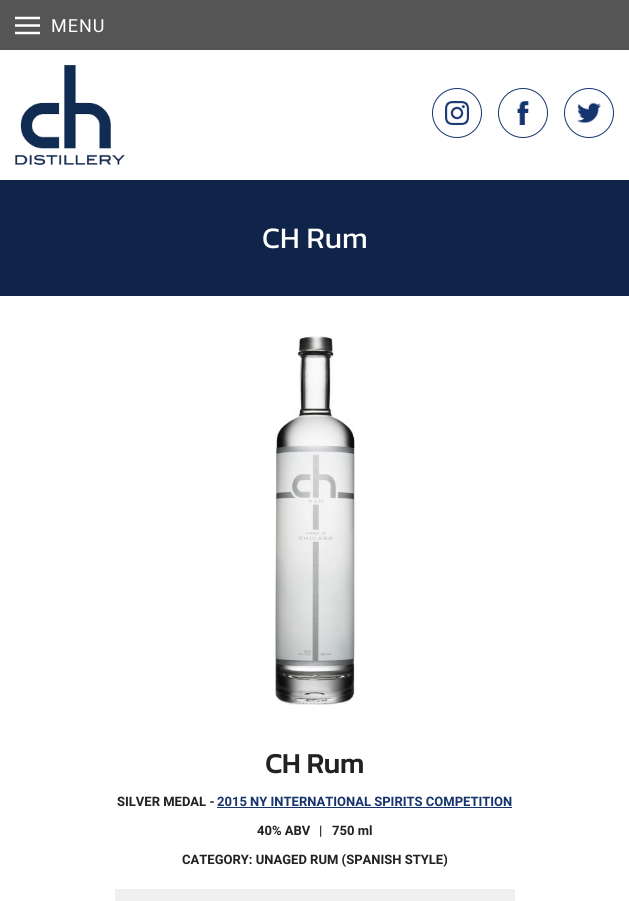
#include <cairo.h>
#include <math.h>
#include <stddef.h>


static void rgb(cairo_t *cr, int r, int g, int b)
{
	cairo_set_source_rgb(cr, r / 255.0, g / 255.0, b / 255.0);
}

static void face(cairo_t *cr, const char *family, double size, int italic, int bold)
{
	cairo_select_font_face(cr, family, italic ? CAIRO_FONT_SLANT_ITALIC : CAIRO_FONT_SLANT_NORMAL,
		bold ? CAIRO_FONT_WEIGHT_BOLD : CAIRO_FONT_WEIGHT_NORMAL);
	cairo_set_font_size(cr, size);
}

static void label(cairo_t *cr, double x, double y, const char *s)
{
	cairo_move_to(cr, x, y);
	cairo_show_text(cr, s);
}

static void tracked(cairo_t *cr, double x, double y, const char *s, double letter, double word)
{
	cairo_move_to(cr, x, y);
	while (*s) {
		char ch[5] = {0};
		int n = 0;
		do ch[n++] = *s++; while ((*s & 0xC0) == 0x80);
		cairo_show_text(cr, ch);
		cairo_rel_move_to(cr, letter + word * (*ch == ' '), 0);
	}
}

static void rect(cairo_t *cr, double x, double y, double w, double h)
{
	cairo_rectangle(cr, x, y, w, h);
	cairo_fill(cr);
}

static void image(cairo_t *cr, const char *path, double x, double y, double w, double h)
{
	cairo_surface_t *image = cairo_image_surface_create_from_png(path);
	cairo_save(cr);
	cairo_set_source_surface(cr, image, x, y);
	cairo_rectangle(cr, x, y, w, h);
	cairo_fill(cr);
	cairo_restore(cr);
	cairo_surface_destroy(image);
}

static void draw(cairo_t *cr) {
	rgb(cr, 255, 255, 255);
	cairo_paint(cr);
	rgb(cr, 85, 85, 85);
	rect(cr, 0, 0, 629, 50);
	image(cr, "image0.png", 15, 16, 25, 19);
	face(cr, "Heebo", 18, 0, 0);
	rgb(cr, 255, 255, 255);
	tracked(cr, 51, 32, "MENU", 1, 0);
	image(cr, "image1.png", 15, 65, 110, 100);
	image(cr, "image2.png", 445, 101, 24, 24);
	cairo_arc(cr, 457, 113, 24.5, 0, 2 * M_PI);
	rgb(cr, 22, 53, 111);
	cairo_set_line_width(cr, 1);
	cairo_stroke(cr);
	image(cr, "image3.png", 517, 101, 12, 24);
	cairo_arc(cr, 523, 113, 24.5, 0, 2 * M_PI);
	cairo_stroke(cr);
	image(cr, "image4.png", 577, 102, 24, 22);
	cairo_arc(cr, 589, 113, 24.5, 0, 2 * M_PI);
	cairo_stroke(cr);
	rgb(cr, 16, 36, 74);
	rect(cr, 0, 180, 629, 116);
	face(cr, "Kanit", 30, 0, 0);
	rgb(cr, 255, 255, 255);
	label(cr, 262, 248, "CH Rum");
	image(cr, "image5.png", 275, 336, 80, 369);
	face(cr, "Kanit", 28, 0, 1);
	rgb(cr, 34, 34, 34);
	label(cr, 265, 773, "CH Rum");
	face(cr, "Heebo", 13, 0, 1);
	label(cr, 117, 806, "SILVER MEDAL -");
	rgb(cr, 22, 53, 111);
	label(cr, 217, 806, "2015 NY INTERNATIONAL SPIRITS COMPETITION");
	rect(cr, 217, 807, 295, 1);
	rgb(cr, 34, 34, 34);
	label(cr, 257, 835, "40% ABV");
	label(cr, 319, 835, "|");
	label(cr, 332, 835, "750 ml");
	label(cr, 182, 864, "CATEGORY: UNAGED RUM (SPANISH STYLE)");
	rgb(cr, 240, 240, 240);
	rect(cr, 115, 889, 400, 12);
}

int main(void) {
	cairo_surface_t *surface = cairo_image_surface_create(CAIRO_FORMAT_RGB24, 629, 901);
	cairo_t *cr = cairo_create(surface);
	cairo_font_options_t *options = cairo_font_options_create();
	cairo_font_options_set_hint_metrics(options, CAIRO_HINT_METRICS_OFF);
	cairo_font_options_set_hint_style(options, CAIRO_HINT_STYLE_NONE);
	cairo_set_font_options(cr, options);
	cairo_set_miter_limit(cr, 4);
	draw(cr);
	cairo_surface_write_to_png(surface, "render.png");
	cairo_font_options_destroy(options);
	cairo_destroy(cr);
	cairo_surface_destroy(surface);
	return 0;
}
